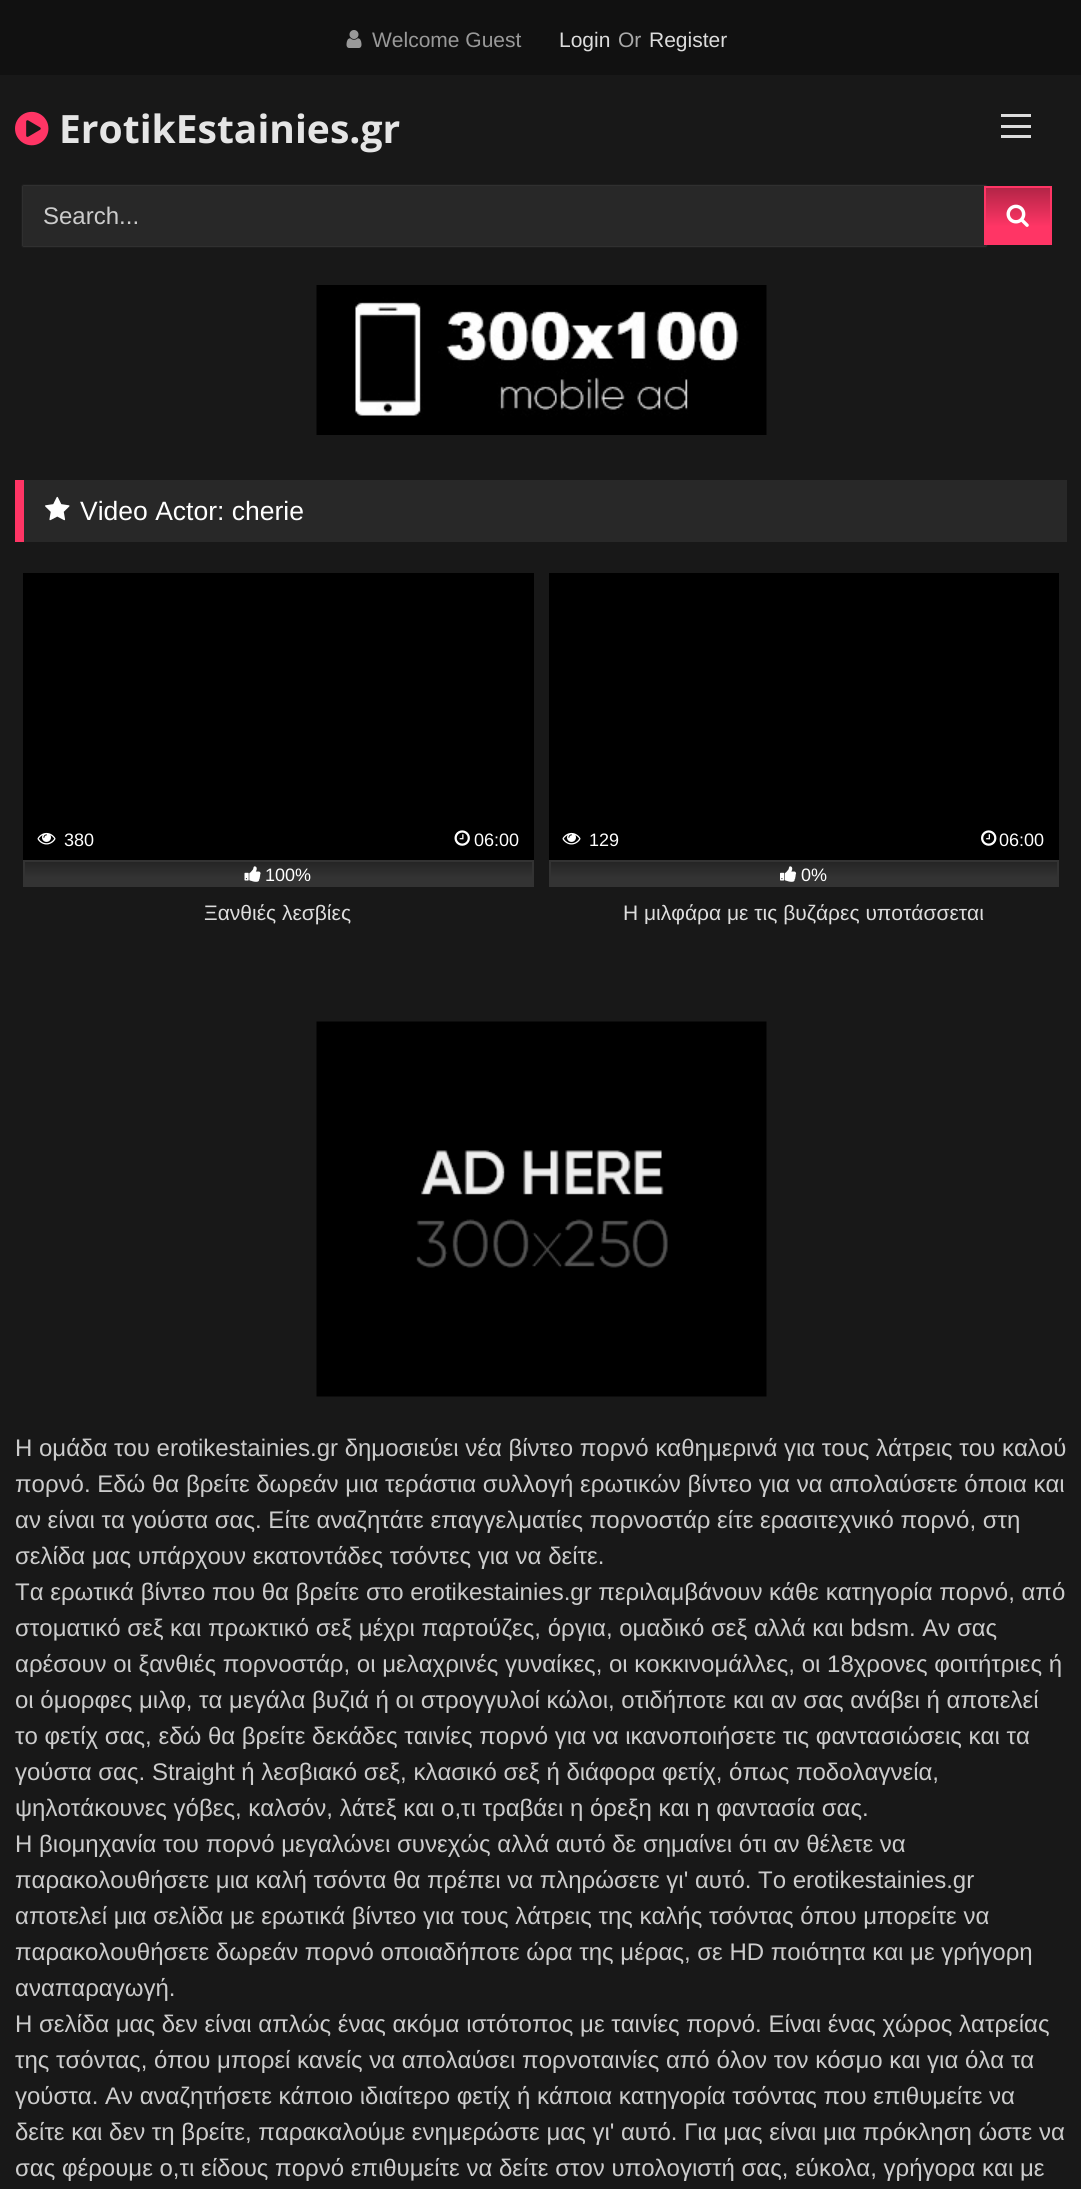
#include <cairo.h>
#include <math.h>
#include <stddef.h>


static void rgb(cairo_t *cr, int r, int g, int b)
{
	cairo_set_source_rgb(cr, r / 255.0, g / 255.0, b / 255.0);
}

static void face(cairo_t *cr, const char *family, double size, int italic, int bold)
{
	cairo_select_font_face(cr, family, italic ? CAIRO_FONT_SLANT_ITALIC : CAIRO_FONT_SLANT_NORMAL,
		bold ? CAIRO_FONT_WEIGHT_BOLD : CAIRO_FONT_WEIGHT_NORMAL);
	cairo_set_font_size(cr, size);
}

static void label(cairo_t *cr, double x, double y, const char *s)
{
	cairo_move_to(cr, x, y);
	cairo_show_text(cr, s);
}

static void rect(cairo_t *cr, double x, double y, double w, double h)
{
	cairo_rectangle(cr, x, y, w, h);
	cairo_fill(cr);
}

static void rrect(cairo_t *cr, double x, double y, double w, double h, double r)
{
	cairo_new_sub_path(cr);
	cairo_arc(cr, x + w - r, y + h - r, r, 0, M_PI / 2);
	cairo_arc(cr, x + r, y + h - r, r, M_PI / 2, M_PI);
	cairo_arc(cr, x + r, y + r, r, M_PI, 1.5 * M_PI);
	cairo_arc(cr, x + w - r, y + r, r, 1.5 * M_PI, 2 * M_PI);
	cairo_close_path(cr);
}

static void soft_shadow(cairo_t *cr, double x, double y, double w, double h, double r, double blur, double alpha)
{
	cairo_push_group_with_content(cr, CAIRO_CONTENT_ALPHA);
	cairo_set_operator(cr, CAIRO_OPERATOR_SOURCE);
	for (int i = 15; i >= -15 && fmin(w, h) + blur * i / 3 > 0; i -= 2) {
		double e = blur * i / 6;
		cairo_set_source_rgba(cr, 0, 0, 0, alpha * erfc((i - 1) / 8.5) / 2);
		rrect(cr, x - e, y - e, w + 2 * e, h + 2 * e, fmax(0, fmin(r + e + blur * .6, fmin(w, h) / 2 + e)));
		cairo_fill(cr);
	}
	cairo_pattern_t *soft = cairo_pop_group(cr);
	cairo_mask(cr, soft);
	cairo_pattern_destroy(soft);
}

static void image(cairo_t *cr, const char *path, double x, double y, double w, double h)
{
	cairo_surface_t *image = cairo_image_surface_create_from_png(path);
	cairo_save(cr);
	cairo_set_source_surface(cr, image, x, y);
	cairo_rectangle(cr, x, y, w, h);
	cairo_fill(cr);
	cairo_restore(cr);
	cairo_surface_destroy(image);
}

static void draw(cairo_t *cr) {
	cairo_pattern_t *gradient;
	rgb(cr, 24, 24, 24);
	cairo_paint(cr);
	rgb(cr, 17, 17, 17);
	rect(cr, 0, 0, 1081, 75);
	image(cr, "image0.png", 346, 30, 16, 18);
	face(cr, "Liberation Sans", 21, 0, 0);
	rgb(cr, 153, 153, 153);
	label(cr, 372, 47, "Welcome Guest");
	rgb(cr, 221, 221, 221);
	label(cr, 559, 47, "Login");
	rgb(cr, 170, 170, 170);
	label(cr, 618, 47, "Or");
	rgb(cr, 221, 221, 221);
	label(cr, 649, 47, "Register");
	image(cr, "image1.png", 15, 111, 34, 35);
	face(cr, "Open Sans", 39, 0, 1);
	rgb(cr, 229, 229, 229);
	label(cr, 59, 143, "ErotikEstainies.gr");
	rgb(cr, 255, 255, 255);
	soft_shadow(cr, 23, 186, 963, 60, 0, 1, 0.3);
	rgb(cr, 40, 40, 40);
	rect(cr, 23, 186, 963, 60);
	face(cr, "Liberation Sans", 24, 0, 0);
	rgb(cr, 204, 204, 204);
	label(cr, 43, 224, "Search...");
	gradient = cairo_pattern_create_linear(1018, 188, 1018, 243);
	cairo_pattern_add_color_stop_rgba(gradient, 0, 0.702, 0.145, 0.278, 1);
	cairo_pattern_add_color_stop_rgba(gradient, 0.7, 1, 0.208, 0.396, 1);
	cairo_set_source(cr, gradient);
	cairo_pattern_destroy(gradient);
	rect(cr, 986, 188, 64, 55);
	cairo_rectangle(cr, 985, 187, 66, 57);
	rgb(cr, 255, 53, 101);
	cairo_stroke(cr);
	image(cr, "image2.png", 1006, 204, 23, 23);
	rgb(cr, 221, 221, 221);
	rect(cr, 1001, 114, 30, 3);
	rect(cr, 1001, 125, 30, 3);
	rect(cr, 1001, 135, 30, 3);
	image(cr, "image3.png", 316, 285, 451, 150);
	rgb(cr, 40, 40, 40);
	rect(cr, 24, 480, 1043, 62);
	rgb(cr, 255, 53, 101);
	rect(cr, 15, 480, 9, 62);
	image(cr, "image4.png", 45, 496, 25, 25);
	face(cr, "Liberation Sans", 26.5, 0, 0);
	rgb(cr, 255, 255, 255);
	label(cr, 80, 520, "Video Actor: cherie");
	rgb(cr, 0, 0, 0);
	rect(cr, 23, 573, 511, 287);
	image(cr, "image5.png", 37, 832, 19, 13);
	face(cr, "Liberation Sans", 18, 0, 0);
	rgb(cr, 255, 255, 255);
	label(cr, 64, 846, "380");
	image(cr, "image6.png", 454, 830, 16, 16);
	label(cr, 474, 846, "06:00");
	gradient = cairo_pattern_create_linear(278, 861, 278, 885);
	cairo_pattern_add_color_stop_rgba(gradient, 0, 0.141, 0.141, 0.141, 1);
	cairo_pattern_add_color_stop_rgba(gradient, 0.7, 0.2, 0.2, 0.2, 1);
	cairo_set_source(cr, gradient);
	cairo_pattern_destroy(gradient);
	rect(cr, 25, 862, 507, 23);
	cairo_rectangle(cr, 24, 861, 509, 25);
	rgb(cr, 51, 51, 51);
	cairo_stroke(cr);
	image(cr, "image7.png", 244, 866, 17, 16);
	rgb(cr, 255, 255, 255);
	label(cr, 265, 881, "100%");
	face(cr, "Liberation Sans", 21, 0, 0);
	rgb(cr, 221, 221, 221);
	label(cr, 204, 920, "Ξανθιές λεσβίες");
	rgb(cr, 0, 0, 0);
	rect(cr, 549, 573, 510, 287);
	image(cr, "image5.png", 562, 832, 19, 13);
	face(cr, "Liberation Sans", 18, 0, 0);
	rgb(cr, 255, 255, 255);
	label(cr, 589, 846, "129");
	image(cr, "image8.png", 981, 830, 16, 16);
	label(cr, 999, 846, "06:00");
	gradient = cairo_pattern_create_linear(804, 861, 804, 885);
	cairo_pattern_add_color_stop_rgba(gradient, 0, 0.141, 0.141, 0.141, 1);
	cairo_pattern_add_color_stop_rgba(gradient, 0.7, 0.2, 0.2, 0.2, 1);
	cairo_set_source(cr, gradient);
	cairo_pattern_destroy(gradient);
	rect(cr, 551, 862, 506, 23);
	cairo_rectangle(cr, 550, 861, 508, 25);
	rgb(cr, 51, 51, 51);
	cairo_stroke(cr);
	image(cr, "image9.png", 780, 866, 17, 16);
	rgb(cr, 255, 255, 255);
	label(cr, 801, 881, "0%");
	face(cr, "Liberation Sans", 21, 0, 0);
	rgb(cr, 221, 221, 221);
	label(cr, 623, 920, "Η μιλφάρα με τις βυζάρες υποτάσσεται");
	image(cr, "image10.png", 316, 1021, 451, 376);
	face(cr, "Liberation Sans", 24, 0, 0);
	rgb(cr, 204, 204, 204);
	label(cr, 15, 1456, "Η ομάδα του erotikestainies.gr δημοσιεύει νέα βίντεο πορνό καθημερινά για τους λάτρεις του καλού");
	label(cr, 15, 1492, "πορνό. Εδώ θα βρείτε δωρεάν μια τεράστια συλλογή ερωτικών βίντεο για να απολαύσετε όποια και");
	label(cr, 15, 1528, "αν είναι τα γούστα σας. Είτε αναζητάτε επαγγελματίες πορνοστάρ είτε ερασιτεχνικό πορνό, στη");
	label(cr, 15, 1564, "σελίδα μας υπάρχουν εκατοντάδες τσόντες για να δείτε.");
	label(cr, 15, 1600, "Τα ερωτικά βίντεο που θα βρείτε στο erotikestainies.gr περιλαμβάνουν κάθε κατηγορία πορνό, από");
	label(cr, 15, 1636, "στοματικό σεξ και πρωκτικό σεξ μέχρι παρτούζες, όργια, ομαδικό σεξ αλλά και bdsm. Αν σας");
	label(cr, 15, 1672, "αρέσουν οι ξανθιές πορνοστάρ, οι μελαχρινές γυναίκες, οι κοκκινομάλλες, οι 18χρονες φοιτήτριες ή");
	label(cr, 15, 1708, "οι όμορφες μιλφ, τα μεγάλα βυζιά ή οι στρογγυλοί κώλοι, οτιδήποτε και αν σας ανάβει ή αποτελεί");
	label(cr, 15, 1744, "το φετίχ σας, εδώ θα βρείτε δεκάδες ταινίες πορνό για να ικανοποιήσετε τις φαντασιώσεις και τα");
	label(cr, 15, 1780, "γούστα σας. Straight ή λεσβιακό σεξ, κλασικό σεξ ή διάφορα φετίχ, όπως ποδολαγνεία,");
	label(cr, 15, 1816, "ψηλοτάκουνες γόβες, καλσόν, λάτεξ και ο,τι τραβάει η όρεξη και η φαντασία σας.");
	label(cr, 15, 1852, "Η βιομηχανία του πορνό μεγαλώνει συνεχώς αλλά αυτό δε σημαίνει ότι αν θέλετε να");
	label(cr, 15, 1888, "παρακολουθήσετε μια καλή τσόντα θα πρέπει να πληρώσετε γι' αυτό. Το erotikestainies.gr");
	label(cr, 15, 1924, "αποτελεί μια σελίδα με ερωτικά βίντεο για τους λάτρεις της καλής τσόντας όπου μπορείτε να");
	label(cr, 15, 1960, "παρακολουθήσετε δωρεάν πορνό οποιαδήποτε ώρα της μέρας, σε HD ποιότητα και με γρήγορη");
	label(cr, 15, 1996, "αναπαραγωγή.");
	label(cr, 15, 2032, "Η σελίδα μας δεν είναι απλώς ένας ακόμα ιστότοπος με ταινίες πορνό. Είναι ένας χώρος λατρείας");
	label(cr, 15, 2068, "της τσόντας, όπου μπορεί κανείς να απολαύσει πορνοταινίες από όλον τον κόσμο και για όλα τα");
	label(cr, 15, 2104, "γούστα. Αν αναζητήσετε κάποιο ιδιαίτερο φετίχ ή κάποια κατηγορία τσόντας που επιθυμείτε να");
	label(cr, 15, 2140, "δείτε και δεν τη βρείτε, παρακαλούμε ενημερώστε μας γι' αυτό. Για μας είναι μια πρόκληση ώστε να");
	label(cr, 15, 2176, "σας φέρουμε ο,τι είδους πορνό επιθυμείτε να δείτε στον υπολογιστή σας, εύκολα, γρήγορα και με");
}

int main(void) {
	cairo_surface_t *surface = cairo_image_surface_create(CAIRO_FORMAT_RGB24, 1081, 2189);
	cairo_t *cr = cairo_create(surface);
	cairo_font_options_t *options = cairo_font_options_create();
	cairo_font_options_set_hint_metrics(options, CAIRO_HINT_METRICS_OFF);
	cairo_font_options_set_hint_style(options, CAIRO_HINT_STYLE_NONE);
	cairo_set_font_options(cr, options);
	cairo_set_miter_limit(cr, 4);
	draw(cr);
	cairo_surface_write_to_png(surface, "render.png");
	cairo_font_options_destroy(options);
	cairo_destroy(cr);
	cairo_surface_destroy(surface);
	return 0;
}
